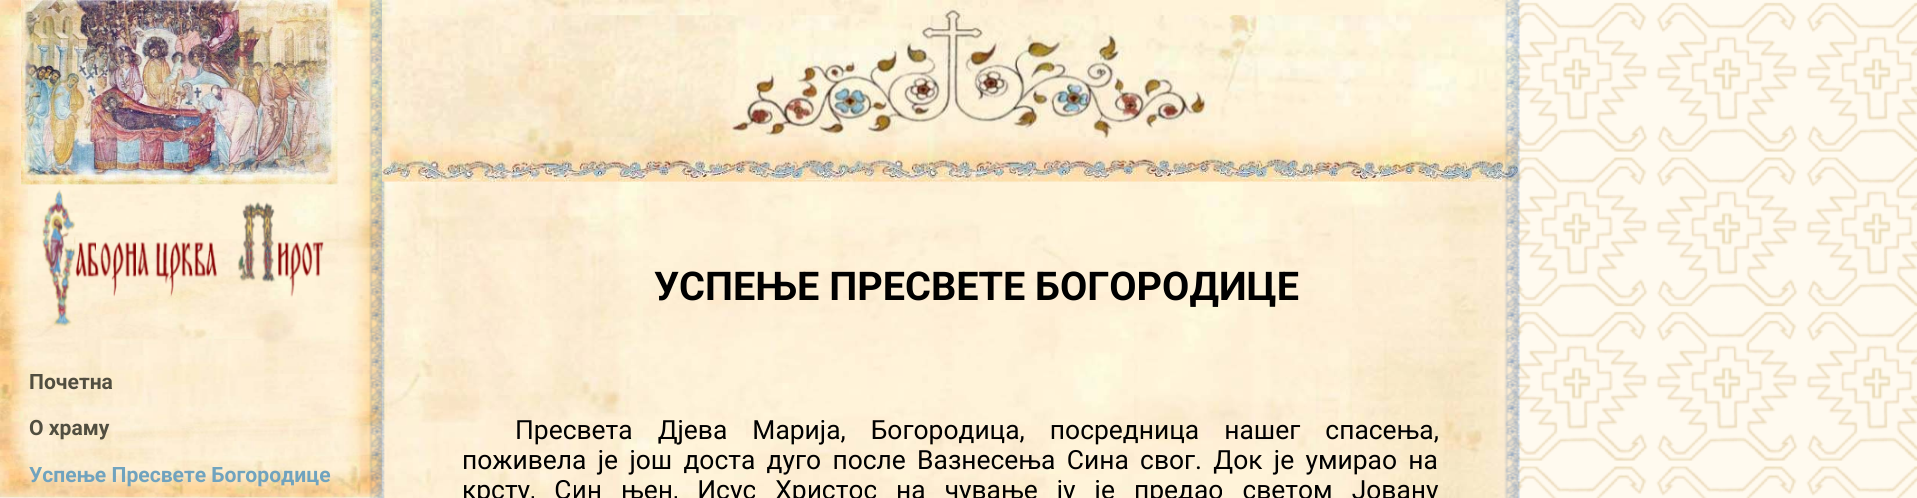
#include <cairo.h>
#include <math.h>
#include <stddef.h>


static void rgb(cairo_t *cr, int r, int g, int b)
{
	cairo_set_source_rgb(cr, r / 255.0, g / 255.0, b / 255.0);
}

static void face(cairo_t *cr, const char *family, double size, int italic, int bold)
{
	cairo_select_font_face(cr, family, italic ? CAIRO_FONT_SLANT_ITALIC : CAIRO_FONT_SLANT_NORMAL,
		bold ? CAIRO_FONT_WEIGHT_BOLD : CAIRO_FONT_WEIGHT_NORMAL);
	cairo_set_font_size(cr, size);
}

static void label(cairo_t *cr, double x, double y, const char *s)
{
	cairo_move_to(cr, x, y);
	cairo_show_text(cr, s);
}

static void tracked(cairo_t *cr, double x, double y, const char *s, double letter, double word)
{
	cairo_move_to(cr, x, y);
	while (*s) {
		char ch[5] = {0};
		int n = 0;
		do ch[n++] = *s++; while ((*s & 0xC0) == 0x80);
		cairo_show_text(cr, ch);
		cairo_rel_move_to(cr, letter + word * (*ch == ' '), 0);
	}
}

static void image(cairo_t *cr, const char *path, double x, double y, double w, double h)
{
	cairo_surface_t *image = cairo_image_surface_create_from_png(path);
	cairo_save(cr);
	cairo_set_source_surface(cr, image, x, y);
	cairo_rectangle(cr, x, y, w, h);
	cairo_fill(cr);
	cairo_restore(cr);
	cairo_surface_destroy(image);
}

static void draw(cairo_t *cr) {
	rgb(cr, 255, 250, 239);
	cairo_paint(cr);
	image(cr, "image0.png", 382, 2, 1535, 496);
	image(cr, "image6.png", 382, 180, 1136, 318);
	image(cr, "image2.png", 0, 0, 383, 498);
	image(cr, "image4.png", 369, 0, 16, 498);
	image(cr, "image1.png", 382, 0, 1136, 182);
	image(cr, "image3.png", 21, 0, 317, 185);
	image(cr, "image5.png", 42, 189, 282, 138);
	face(cr, "Roboto", 21.1, 0, 1);
	rgb(cr, 81, 78, 64);
	label(cr, 29, 389, "Почетна");
	label(cr, 29, 435, "О храму");
	rgb(cr, 112, 163, 190);
	label(cr, 29, 482, "Успење Пресвете Богородице");
	face(cr, "Roboto", 39.6, 0, 1);
	rgb(cr, 0, 0, 0);
	label(cr, 654, 300, "УСПЕЊЕ ПРЕСВЕТЕ БОГОРОДИЦЕ");
	face(cr, "Roboto", 26.4, 0, 0);
	tracked(cr, 515, 439, "Пресвета Дјева Марија, Богородица, посредница нашег спасења,", 0, 18.5);
	tracked(cr, 462, 469, "поживела је још доста дуго после Вазнесења Сина свог. Док је умирао на", 0, 4.75);
	tracked(cr, 462, 499, "крсту, Син њен, Исус Христос", 0, 12.5);
	tracked(cr, 896, 499, "на чување ју је предао светом Јовану", 0, 12.5);
	image(cr, "image7.png", 1504, 0, 16, 498);
}

int main(void) {
	cairo_surface_t *surface = cairo_image_surface_create(CAIRO_FORMAT_RGB24, 1917, 498);
	cairo_t *cr = cairo_create(surface);
	cairo_font_options_t *options = cairo_font_options_create();
	cairo_font_options_set_hint_metrics(options, CAIRO_HINT_METRICS_OFF);
	cairo_font_options_set_hint_style(options, CAIRO_HINT_STYLE_NONE);
	cairo_set_font_options(cr, options);
	cairo_set_miter_limit(cr, 4);
	draw(cr);
	cairo_surface_write_to_png(surface, "render.png");
	cairo_font_options_destroy(options);
	cairo_destroy(cr);
	cairo_surface_destroy(surface);
	return 0;
}
